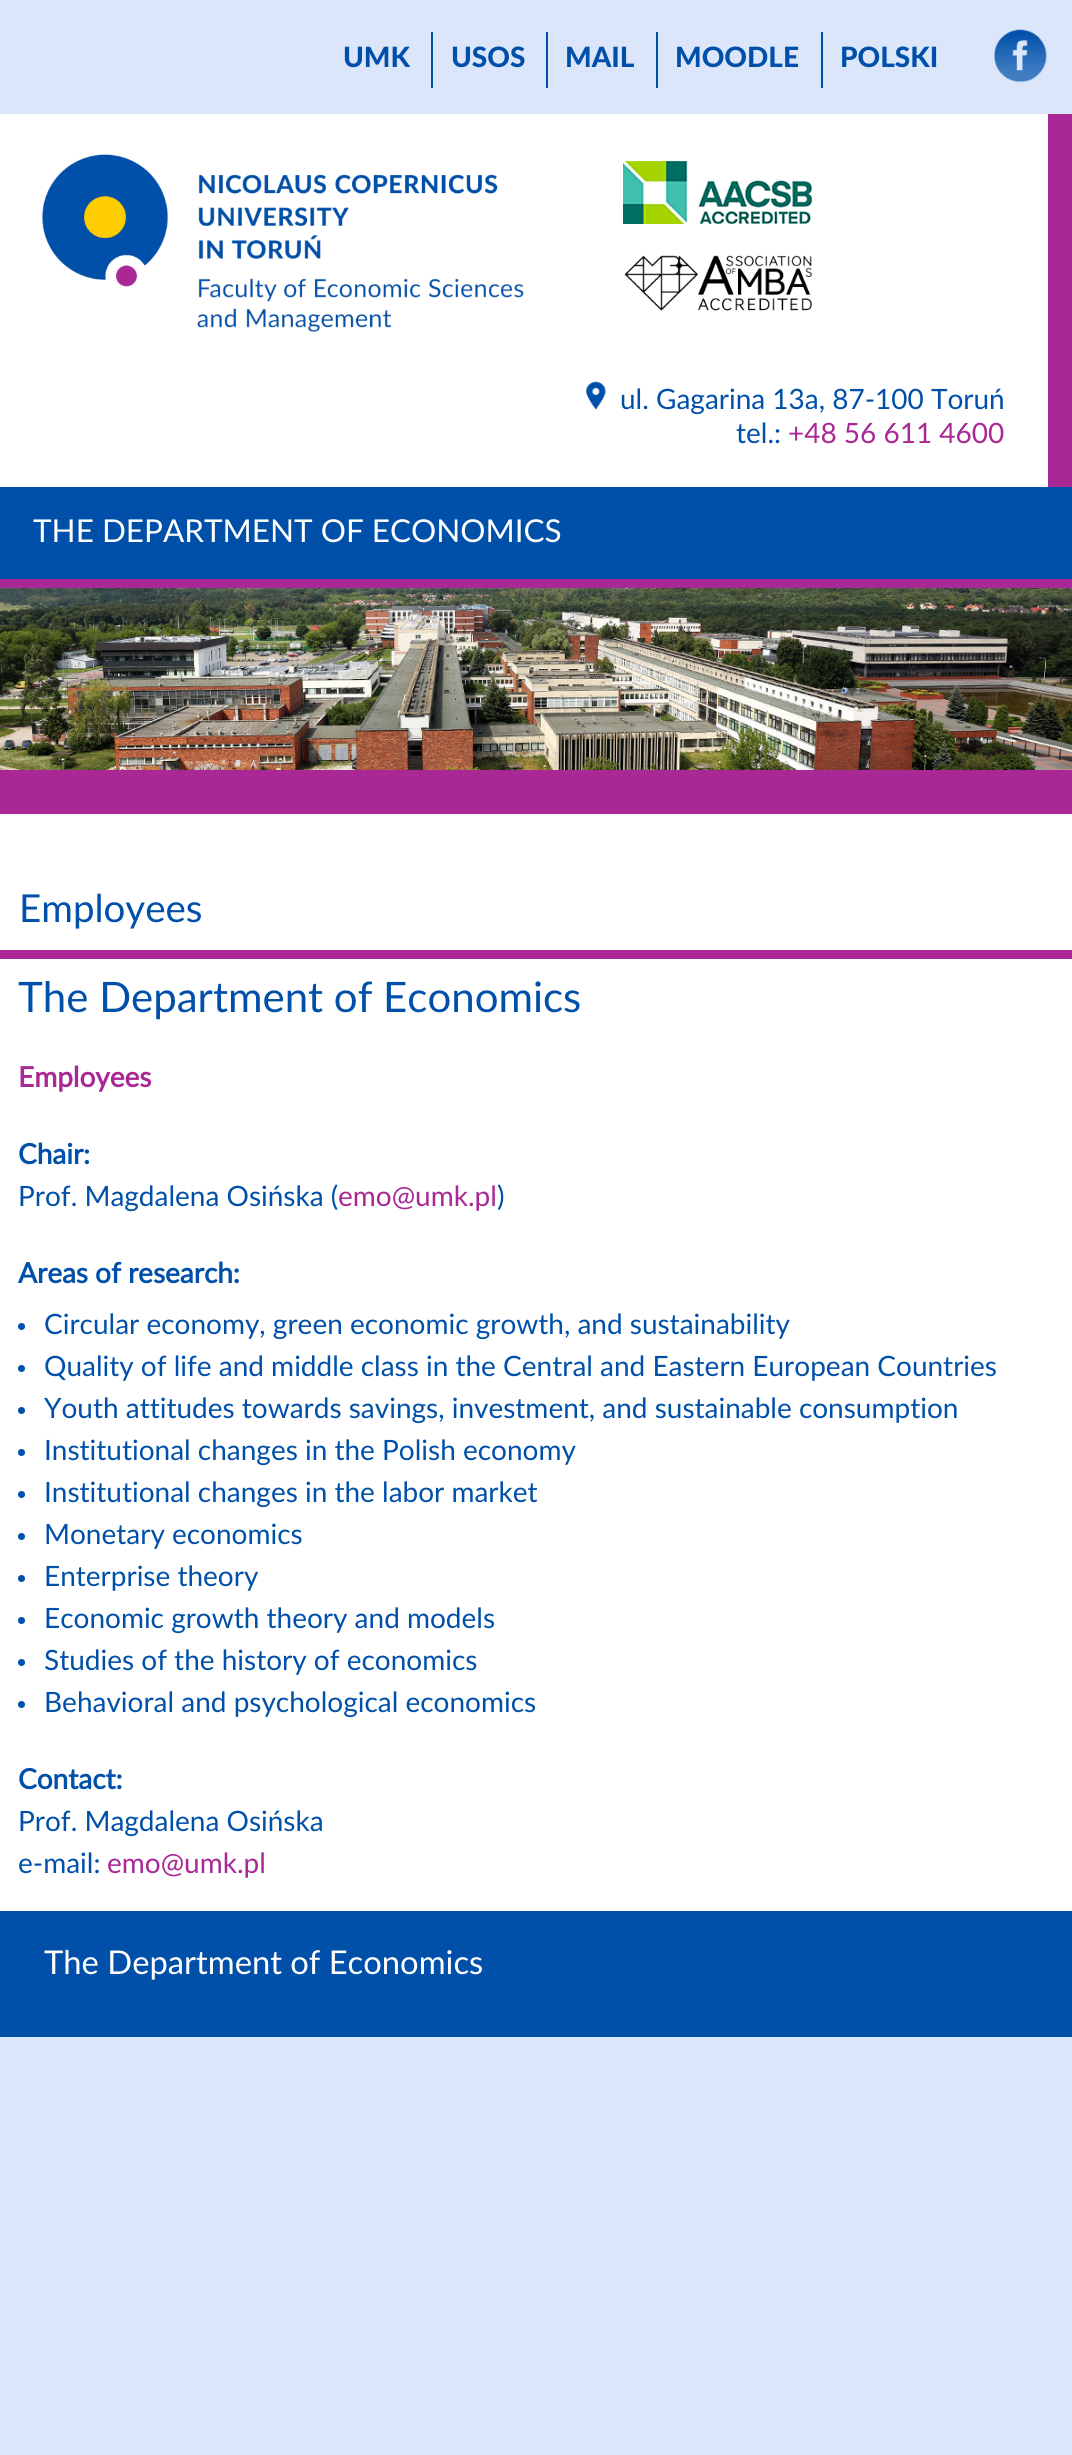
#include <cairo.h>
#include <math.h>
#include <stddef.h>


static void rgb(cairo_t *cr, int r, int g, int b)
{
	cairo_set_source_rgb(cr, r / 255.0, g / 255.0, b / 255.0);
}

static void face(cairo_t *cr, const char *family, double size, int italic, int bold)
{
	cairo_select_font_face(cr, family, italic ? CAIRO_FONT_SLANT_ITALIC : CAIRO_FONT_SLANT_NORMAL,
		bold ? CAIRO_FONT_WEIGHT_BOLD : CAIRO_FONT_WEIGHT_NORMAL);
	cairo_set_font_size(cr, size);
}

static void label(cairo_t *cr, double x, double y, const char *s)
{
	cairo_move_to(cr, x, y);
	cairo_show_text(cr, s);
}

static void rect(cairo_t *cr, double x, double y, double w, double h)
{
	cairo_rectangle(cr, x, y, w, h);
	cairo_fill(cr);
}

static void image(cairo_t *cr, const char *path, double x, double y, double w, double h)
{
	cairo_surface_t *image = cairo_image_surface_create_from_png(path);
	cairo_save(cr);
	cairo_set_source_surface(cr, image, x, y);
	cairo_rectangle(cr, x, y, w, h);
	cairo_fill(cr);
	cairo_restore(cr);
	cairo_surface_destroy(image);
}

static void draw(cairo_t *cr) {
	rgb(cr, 220, 230, 250);
	cairo_paint(cr);
	face(cr, "Lato Black", 28, 0, 0);
	rgb(cr, 0, 80, 170);
	label(cr, 343, 67, "UMK");
	rect(cr, 431, 32, 2, 56);
	label(cr, 451, 67, "USOS");
	rect(cr, 546, 32, 2, 56);
	label(cr, 565, 67, "MAIL");
	rect(cr, 656, 32, 2, 56);
	label(cr, 675, 67, "MOODLE");
	rect(cr, 821, 32, 2, 56);
	label(cr, 840, 67, "POLSKI");
	image(cr, "image0.png", 994, 29, 53, 54);
	rgb(cr, 255, 255, 255);
	rect(cr, 0, 114, 1048, 373);
	rgb(cr, 169, 40, 149);
	rect(cr, 1048, 114, 24, 373);
	image(cr, "image1.png", 42, 154, 482, 178);
	image(cr, "image2.png", 623, 161, 189, 63);
	image(cr, "image3.png", 624, 255, 188, 56);
	image(cr, "image4.png", 586, 381, 20, 29);
	face(cr, "Lato", 28, 0, 0);
	rgb(cr, 0, 80, 170);
	label(cr, 620, 409, "ul. Gagarina 13a, 87-100 Toruń");
	label(cr, 736, 443, "tel.:");
	rgb(cr, 169, 40, 149);
	label(cr, 788, 443, "+48 56 611 4600");
	rgb(cr, 0, 80, 170);
	rect(cr, 0, 487, 1072, 92);
	face(cr, "Lato", 31.5, 0, 0);
	rgb(cr, 255, 255, 255);
	label(cr, 33, 542, "THE DEPARTMENT OF ECONOMICS");
	rgb(cr, 169, 40, 149);
	rect(cr, 0, 579, 1072, 9);
	image(cr, "image5.png", 0, 588, 1072, 182);
	rect(cr, 0, 770, 1072, 44);
	rgb(cr, 255, 255, 255);
	rect(cr, 0, 814, 1072, 136);
	rgb(cr, 169, 40, 149);
	rect(cr, 0, 950, 1072, 9);
	face(cr, "Lato", 38.5, 0, 0);
	rgb(cr, 0, 80, 170);
	label(cr, 19, 922, "Employees");
	rgb(cr, 255, 255, 255);
	rect(cr, 0, 959, 1072, 952);
	face(cr, "Lato", 42, 0, 0);
	rgb(cr, 0, 80, 170);
	label(cr, 18, 1012, "The Department of Economics");
	face(cr, "Lato", 28, 0, 1);
	rgb(cr, 169, 40, 149);
	label(cr, 18, 1087, "Employees");
	rgb(cr, 0, 80, 170);
	label(cr, 18, 1164, "Chair:");
	face(cr, "Lato", 28, 0, 0);
	label(cr, 18, 1206, "Prof. Magdalena Osińska (");
	rgb(cr, 169, 40, 149);
	label(cr, 338, 1206, "emo@umk.pl");
	rgb(cr, 0, 80, 170);
	label(cr, 497, 1206, ")");
	face(cr, "Lato", 28, 0, 1);
	label(cr, 18, 1283, "Areas of research:");
	cairo_new_path(cr);
	cairo_arc(cr, 21.5, 1326.5, 3.5, 0, 2 * M_PI);
	cairo_fill(cr);
	face(cr, "Lato", 28, 0, 0);
	label(cr, 44, 1334, "Circular economy, green economic growth, and sustainability");
	cairo_new_path(cr);
	cairo_arc(cr, 21.5, 1368.5, 3.5, 0, 2 * M_PI);
	cairo_fill(cr);
	label(cr, 44, 1376, "Quality of life and middle class in the Central and Eastern European Countries");
	cairo_new_path(cr);
	cairo_arc(cr, 21.5, 1410.5, 3.5, 0, 2 * M_PI);
	cairo_fill(cr);
	label(cr, 44, 1418, "Youth attitudes towards savings, investment, and sustainable consumption");
	cairo_new_path(cr);
	cairo_arc(cr, 21.5, 1452.5, 3.5, 0, 2 * M_PI);
	cairo_fill(cr);
	label(cr, 44, 1460, "Institutional changes in the Polish economy");
	cairo_new_path(cr);
	cairo_arc(cr, 21.5, 1494.5, 3.5, 0, 2 * M_PI);
	cairo_fill(cr);
	label(cr, 44, 1502, "Institutional changes in the labor market");
	cairo_new_path(cr);
	cairo_arc(cr, 21.5, 1536.5, 3.5, 0, 2 * M_PI);
	cairo_fill(cr);
	label(cr, 44, 1544, "Monetary economics");
	cairo_new_path(cr);
	cairo_arc(cr, 21.5, 1578.5, 3.5, 0, 2 * M_PI);
	cairo_fill(cr);
	label(cr, 44, 1586, "Enterprise theory");
	cairo_new_path(cr);
	cairo_arc(cr, 21.5, 1620.5, 3.5, 0, 2 * M_PI);
	cairo_fill(cr);
	label(cr, 44, 1628, "Economic growth theory and models");
	cairo_new_path(cr);
	cairo_arc(cr, 21.5, 1662.5, 3.5, 0, 2 * M_PI);
	cairo_fill(cr);
	label(cr, 44, 1670, "Studies of the history of economics");
	cairo_new_path(cr);
	cairo_arc(cr, 21.5, 1704.5, 3.5, 0, 2 * M_PI);
	cairo_fill(cr);
	label(cr, 44, 1712, "Behavioral and psychological economics");
	face(cr, "Lato", 28, 0, 1);
	label(cr, 18, 1789, "Contact:");
	face(cr, "Lato", 28, 0, 0);
	label(cr, 18, 1831, "Prof. Magdalena Osińska");
	label(cr, 18, 1873, "e-mail:");
	rgb(cr, 169, 40, 149);
	label(cr, 107, 1873, "emo@umk.pl");
	rgb(cr, 0, 80, 170);
	rect(cr, 0, 1911, 1072, 126);
	face(cr, "Lato", 32.75, 0, 0);
	rgb(cr, 255, 255, 255);
	label(cr, 44, 1974, "The Department of Economics");
}

int main(void) {
	cairo_surface_t *surface = cairo_image_surface_create(CAIRO_FORMAT_RGB24, 1072, 2455);
	cairo_t *cr = cairo_create(surface);
	cairo_font_options_t *options = cairo_font_options_create();
	cairo_font_options_set_hint_metrics(options, CAIRO_HINT_METRICS_OFF);
	cairo_font_options_set_hint_style(options, CAIRO_HINT_STYLE_NONE);
	cairo_set_font_options(cr, options);
	cairo_set_miter_limit(cr, 4);
	draw(cr);
	cairo_surface_write_to_png(surface, "render.png");
	cairo_font_options_destroy(options);
	cairo_destroy(cr);
	cairo_surface_destroy(surface);
	return 0;
}
